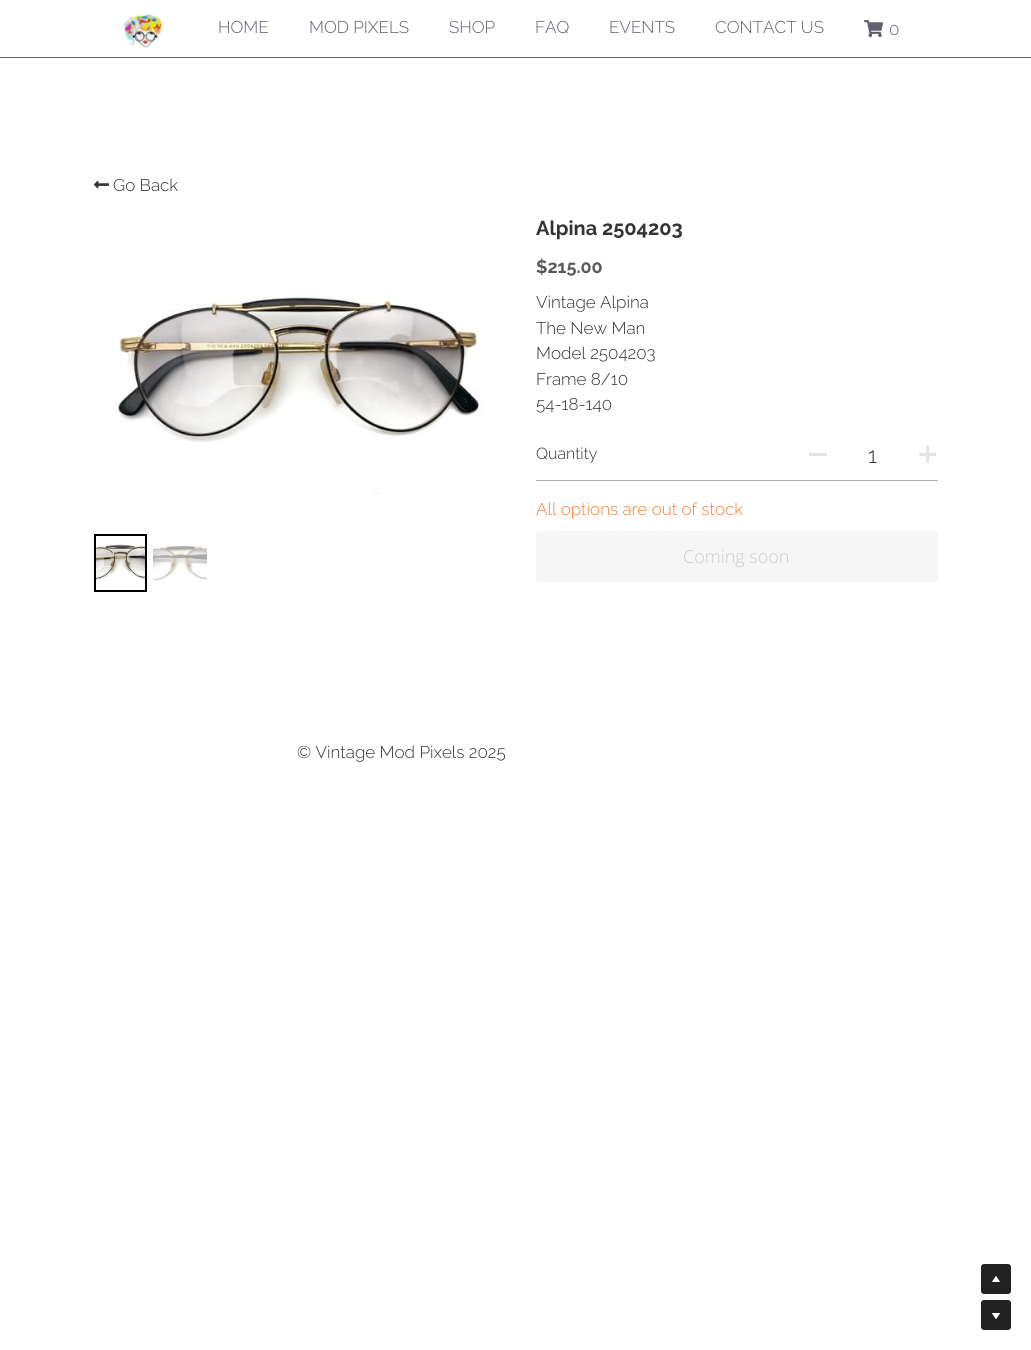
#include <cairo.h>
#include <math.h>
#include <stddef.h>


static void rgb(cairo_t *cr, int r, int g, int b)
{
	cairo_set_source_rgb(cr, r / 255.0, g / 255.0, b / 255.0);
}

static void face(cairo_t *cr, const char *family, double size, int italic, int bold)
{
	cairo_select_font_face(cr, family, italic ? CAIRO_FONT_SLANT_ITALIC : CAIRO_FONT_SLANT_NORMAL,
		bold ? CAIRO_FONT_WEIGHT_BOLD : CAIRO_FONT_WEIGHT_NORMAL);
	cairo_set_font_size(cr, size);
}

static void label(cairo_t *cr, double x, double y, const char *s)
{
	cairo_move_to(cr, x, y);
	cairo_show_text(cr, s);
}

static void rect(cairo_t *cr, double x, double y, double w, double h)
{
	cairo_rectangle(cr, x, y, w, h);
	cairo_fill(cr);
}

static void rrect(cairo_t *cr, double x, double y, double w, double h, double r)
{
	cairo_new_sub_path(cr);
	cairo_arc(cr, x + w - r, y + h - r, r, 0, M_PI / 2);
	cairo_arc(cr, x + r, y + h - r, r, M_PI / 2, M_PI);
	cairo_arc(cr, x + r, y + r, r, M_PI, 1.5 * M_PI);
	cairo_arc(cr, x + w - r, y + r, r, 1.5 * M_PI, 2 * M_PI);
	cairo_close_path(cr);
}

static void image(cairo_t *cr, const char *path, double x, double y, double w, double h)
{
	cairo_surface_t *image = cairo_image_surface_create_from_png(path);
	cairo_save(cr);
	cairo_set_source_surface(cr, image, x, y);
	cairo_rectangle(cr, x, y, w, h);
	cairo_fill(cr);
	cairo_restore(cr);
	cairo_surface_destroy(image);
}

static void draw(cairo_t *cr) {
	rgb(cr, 255, 255, 255);
	cairo_paint(cr);
	rgb(cr, 102, 102, 102);
	rect(cr, 0, 57, 1031, 1);
	image(cr, "image0.png", 123, 14, 41, 34);
	face(cr, "Raleway Light", 17, 0, 0);
	rgb(cr, 96, 95, 109);
	label(cr, 218, 33, "HOME");
	label(cr, 309, 33, "MOD PIXELS");
	label(cr, 449, 33, "SHOP");
	label(cr, 535, 33, "FAQ");
	label(cr, 609, 33, "EVENTS");
	label(cr, 715, 33, "CONTACT US");
	image(cr, "image1.png", 864, 20, 20, 18);
	label(cr, 889, 35, "0");
	image(cr, "image2.png", 94, 181, 15, 8);
	rgb(cr, 51, 51, 51);
	label(cr, 113, 191, "Go Back");
	image(cr, "image3.png", 116, 281, 367, 213);
	cairo_rectangle(cr, 95, 535, 51, 56);
	rgb(cr, 0, 0, 0);
	cairo_stroke(cr);
	image(cr, "image4.png", 96, 544, 49, 36);
	image(cr, "image5.png", 153, 545, 54, 36);
	face(cr, "Raleway", 20, 0, 1);
	rgb(cr, 51, 51, 51);
	label(cr, 536, 235, "Alpina 2504203");
	face(cr, "Raleway", 18, 0, 1);
	rgb(cr, 89, 89, 89);
	label(cr, 536, 273, "$215.00");
	face(cr, "Raleway Light", 17, 0, 0);
	rgb(cr, 51, 51, 51);
	label(cr, 536, 308, "Vintage Alpina");
	label(cr, 536, 334, "The New Man");
	label(cr, 536, 359, "Model 2504203");
	label(cr, 536, 385, "Frame 8/10");
	label(cr, 536, 410, "54-18-140");
	rgb(cr, 169, 174, 178);
	rect(cr, 536, 480, 402, 1);
	face(cr, "Raleway Light", 16, 0, 0);
	rgb(cr, 51, 51, 51);
	label(cr, 536, 459, "Quantity");
	rgb(cr, 226, 228, 231);
	rect(cr, 809, 453, 18, 3);
	face(cr, "Raleway Light", 22, 0, 0);
	rgb(cr, 51, 51, 51);
	label(cr, 868, 463, "1");
	image(cr, "image6.png", 919, 445, 18, 19);
	face(cr, "Raleway Light", 17, 0, 0);
	rgb(cr, 251, 125, 43);
	label(cr, 536, 515, "All options are out of stock");
	rgb(cr, 246, 246, 246);
	rrect(cr, 536, 531, 402, 51, 3);
	cairo_fill(cr);
	face(cr, "Open Sans Light", 18, 0, 0);
	rgb(cr, 204, 204, 204);
	label(cr, 683, 563, "Coming soon");
	face(cr, "Raleway Light", 17, 0, 0);
	rgb(cr, 51, 51, 51);
	label(cr, 297, 758, "© Vintage Mod Pixels 2025");
	rgb(cr, 34, 34, 34);
	rrect(cr, 981, 1264, 30, 30, 3);
	cairo_fill(cr);
	image(cr, "image7.png", 992, 1276, 8, 6);
	rrect(cr, 981, 1300, 30, 30, 3);
	cairo_fill(cr);
	image(cr, "image8.png", 992, 1313, 8, 6);
}

int main(void) {
	cairo_surface_t *surface = cairo_image_surface_create(CAIRO_FORMAT_RGB24, 1031, 1350);
	cairo_t *cr = cairo_create(surface);
	cairo_font_options_t *options = cairo_font_options_create();
	cairo_font_options_set_hint_metrics(options, CAIRO_HINT_METRICS_OFF);
	cairo_font_options_set_hint_style(options, CAIRO_HINT_STYLE_NONE);
	cairo_set_font_options(cr, options);
	cairo_set_miter_limit(cr, 4);
	draw(cr);
	cairo_surface_write_to_png(surface, "render.png");
	cairo_font_options_destroy(options);
	cairo_destroy(cr);
	cairo_surface_destroy(surface);
	return 0;
}
